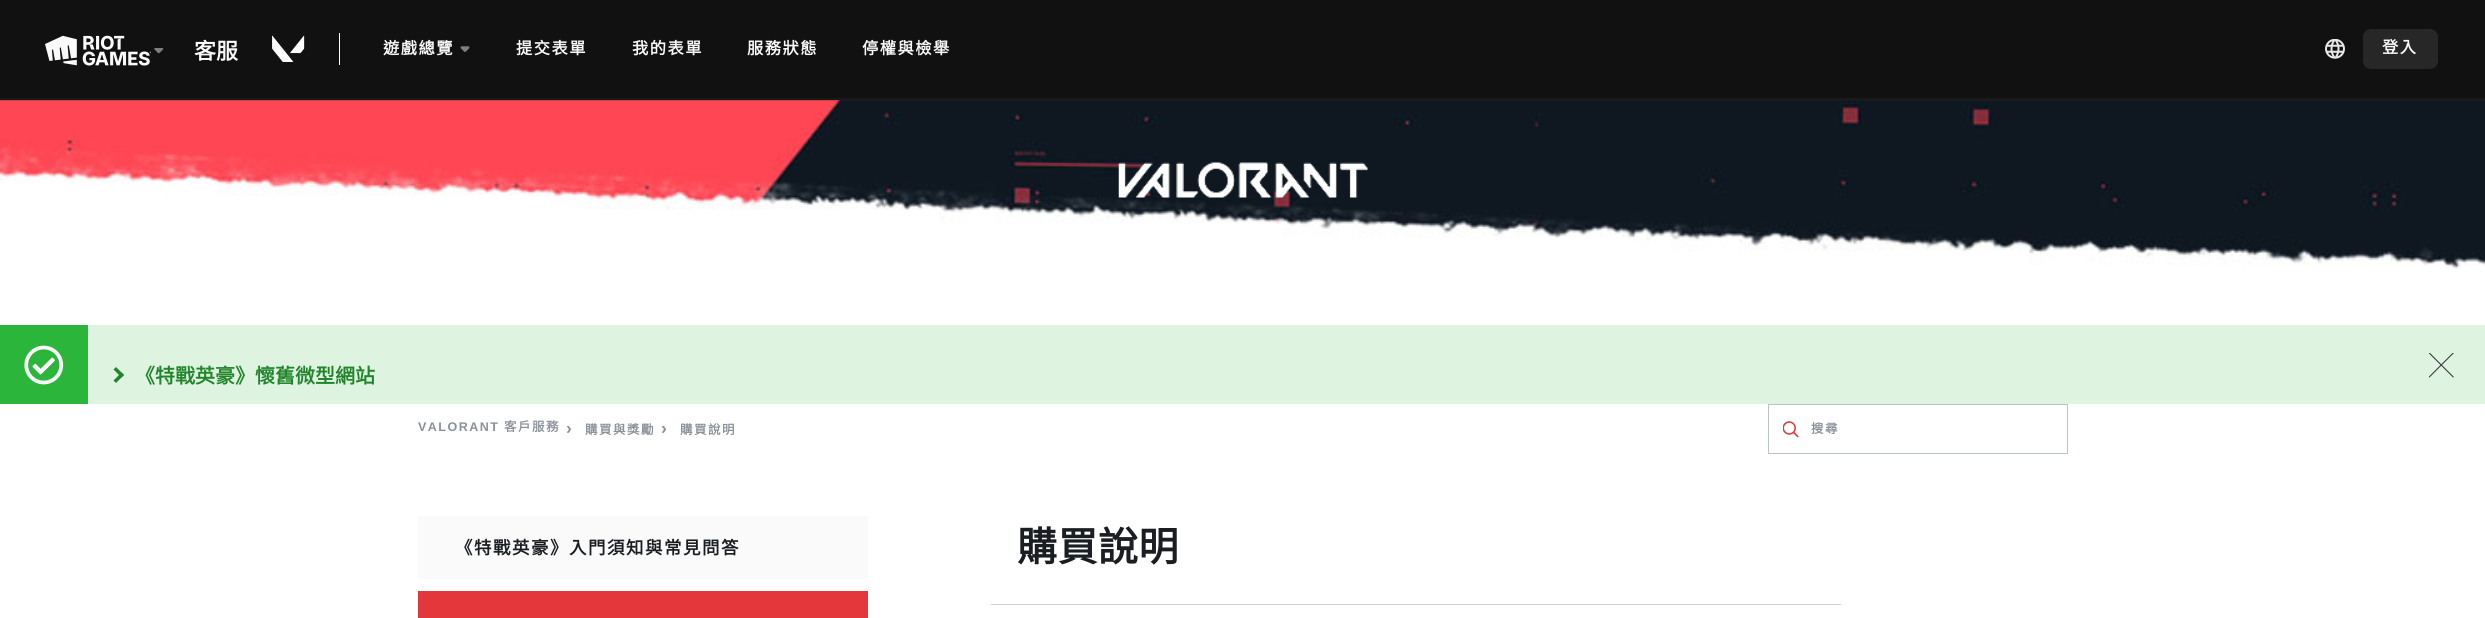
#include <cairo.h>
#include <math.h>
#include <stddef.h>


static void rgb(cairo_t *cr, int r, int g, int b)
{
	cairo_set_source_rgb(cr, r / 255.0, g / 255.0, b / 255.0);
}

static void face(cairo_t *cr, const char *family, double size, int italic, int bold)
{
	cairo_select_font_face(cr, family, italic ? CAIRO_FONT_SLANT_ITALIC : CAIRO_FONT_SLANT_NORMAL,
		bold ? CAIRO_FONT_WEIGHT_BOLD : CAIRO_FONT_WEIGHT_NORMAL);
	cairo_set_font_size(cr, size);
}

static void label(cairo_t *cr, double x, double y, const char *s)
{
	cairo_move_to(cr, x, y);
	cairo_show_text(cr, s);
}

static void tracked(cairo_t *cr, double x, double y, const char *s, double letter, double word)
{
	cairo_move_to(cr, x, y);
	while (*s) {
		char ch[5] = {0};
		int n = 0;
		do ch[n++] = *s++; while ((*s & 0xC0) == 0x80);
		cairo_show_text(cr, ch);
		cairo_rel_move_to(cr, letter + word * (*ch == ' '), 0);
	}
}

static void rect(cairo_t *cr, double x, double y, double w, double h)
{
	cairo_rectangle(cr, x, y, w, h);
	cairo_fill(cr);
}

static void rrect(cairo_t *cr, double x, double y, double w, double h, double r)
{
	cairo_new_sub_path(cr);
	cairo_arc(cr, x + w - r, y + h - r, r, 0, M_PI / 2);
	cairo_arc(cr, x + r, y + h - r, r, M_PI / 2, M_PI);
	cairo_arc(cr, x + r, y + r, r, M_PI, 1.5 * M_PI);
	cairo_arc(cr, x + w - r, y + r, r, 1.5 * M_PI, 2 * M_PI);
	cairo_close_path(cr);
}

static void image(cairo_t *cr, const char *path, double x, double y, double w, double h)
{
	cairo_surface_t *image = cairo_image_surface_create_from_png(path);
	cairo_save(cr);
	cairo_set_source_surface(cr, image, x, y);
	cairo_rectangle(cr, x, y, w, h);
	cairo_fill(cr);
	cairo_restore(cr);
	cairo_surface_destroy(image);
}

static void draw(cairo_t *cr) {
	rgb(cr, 255, 255, 255);
	cairo_paint(cr);
	rgb(cr, 17, 17, 17);
	rect(cr, 0, 0, 2485, 100);
	image(cr, "image5.png", 0, 100, 2485, 169);
	cairo_set_source_rgba(cr, 0.2, 0.2, 0.2, 0.25);
	rect(cr, 0, 98, 2485, 3);
	image(cr, "image0.png", 45, 35, 106, 31);
	image(cr, "image1.png", 154, 48, 10, 6);
	face(cr, "Noto Sans CJK TC", 22, 0, 1);
	rgb(cr, 249, 249, 249);
	label(cr, 194, 59, "客服");
	rgb(cr, 255, 255, 255);
	rect(cr, 339, 33, 1, 32);
	image(cr, "image2.png", 272, 35, 33, 27);
	face(cr, "Noto Sans CJK TC", 16.25, 0, 1);
	rgb(cr, 249, 249, 249);
	tracked(cr, 383, 54, "遊戲總覽", 1.5, 0);
	image(cr, "image3.png", 460, 46, 10, 6);
	tracked(cr, 516, 54, "提交表單", 1.5, 0);
	tracked(cr, 632, 54, "我的表單", 1.5, 0);
	tracked(cr, 747, 54, "服務狀態", 1.5, 0);
	tracked(cr, 862, 54, "停權與檢舉", 1.5, 0);
	image(cr, "image4.png", 2325, 39, 20, 20);
	rgb(cr, 39, 39, 39);
	rrect(cr, 2363, 29, 75, 40, 8);
	cairo_fill(cr);
	rgb(cr, 249, 249, 249);
	tracked(cr, 2382, 53, "登入", 1.5, 0);
	image(cr, "image6.png", 1118, 162, 250, 36);
	rgb(cr, 223, 243, 225);
	rect(cr, 88, 325, 2397, 79);
	rgb(cr, 44, 181, 59);
	rect(cr, 0, 325, 88, 79);
	image(cr, "image7.png", 24, 345, 40, 40);
	rgb(cr, 33, 133, 43);
	cairo_new_path(cr);
	cairo_move_to(cr, 113.5, 369.5);
	cairo_line_to(cr, 116, 367);
	cairo_line_to(cr, 124, 375);
	cairo_line_to(cr, 121.5, 377.5);
	cairo_close_path(cr);
	cairo_fill(cr);
	cairo_new_path(cr);
	cairo_move_to(cr, 113.5, 380.5);
	cairo_line_to(cr, 121.5, 372.5);
	cairo_line_to(cr, 124, 375);
	cairo_line_to(cr, 116, 383);
	cairo_close_path(cr);
	cairo_fill(cr);
	face(cr, "Noto Sans CJK TC", 20, 0, 1);
	label(cr, 135, 383, "《特戰英豪》懷舊微型網站");
	image(cr, "image8.png", 2429, 353, 25, 25);
	face(cr, "Liberation Sans", 12.5, 0, 1);
	rgb(cr, 139, 145, 153);
	tracked(cr, 418, 431, "VALORANT", 1.5, 0);
	face(cr, "Noto Sans CJK TC", 12.5, 0, 1);
	tracked(cr, 504, 431, "客戶服務", 1.5, 0);
	face(cr, "Liberation Sans", 17.5, 0, 1);
	tracked(cr, 566, 434, "›", 1.5, 0);
	face(cr, "Noto Sans CJK TC", 12.5, 0, 1);
	tracked(cr, 585, 434, "購買與獎勵", 1.5, 0);
	face(cr, "Liberation Sans", 17.5, 0, 1);
	tracked(cr, 661, 434, "›", 1.5, 0);
	face(cr, "Noto Sans CJK TC", 12.5, 0, 1);
	tracked(cr, 680, 434, "購買說明", 1.5, 0);
	cairo_rectangle(cr, 1768.5, 404.5, 299, 49);
	rgb(cr, 186, 194, 204);
	cairo_set_line_width(cr, 1);
	cairo_stroke(cr);
	image(cr, "image9.png", 1783, 421, 16, 17);
	rgb(cr, 139, 145, 153);
	tracked(cr, 1811, 433, "搜尋", 1.5, 0);
	rgb(cr, 250, 250, 250);
	rect(cr, 418, 516, 450, 63);
	face(cr, "Noto Sans CJK TC", 17.5, 0, 1);
	rgb(cr, 26, 29, 33);
	tracked(cr, 455, 554, "《特戰英豪》入門須知與常見問答", 1.5, 0);
	rgb(cr, 228, 55, 60);
	rect(cr, 418, 591, 450, 27);
	face(cr, "Noto Sans CJK TC", 40, 0, 1);
	rgb(cr, 26, 29, 33);
	tracked(cr, 1017, 561, "購買說明", 0.5, 0);
	rgb(cr, 210, 210, 209);
	rect(cr, 991, 604, 850, 1);
}

int main(void) {
	cairo_surface_t *surface = cairo_image_surface_create(CAIRO_FORMAT_RGB24, 2485, 618);
	cairo_t *cr = cairo_create(surface);
	cairo_font_options_t *options = cairo_font_options_create();
	cairo_font_options_set_hint_metrics(options, CAIRO_HINT_METRICS_OFF);
	cairo_font_options_set_hint_style(options, CAIRO_HINT_STYLE_NONE);
	cairo_set_font_options(cr, options);
	cairo_set_miter_limit(cr, 4);
	draw(cr);
	cairo_surface_write_to_png(surface, "render.png");
	cairo_font_options_destroy(options);
	cairo_destroy(cr);
	cairo_surface_destroy(surface);
	return 0;
}
